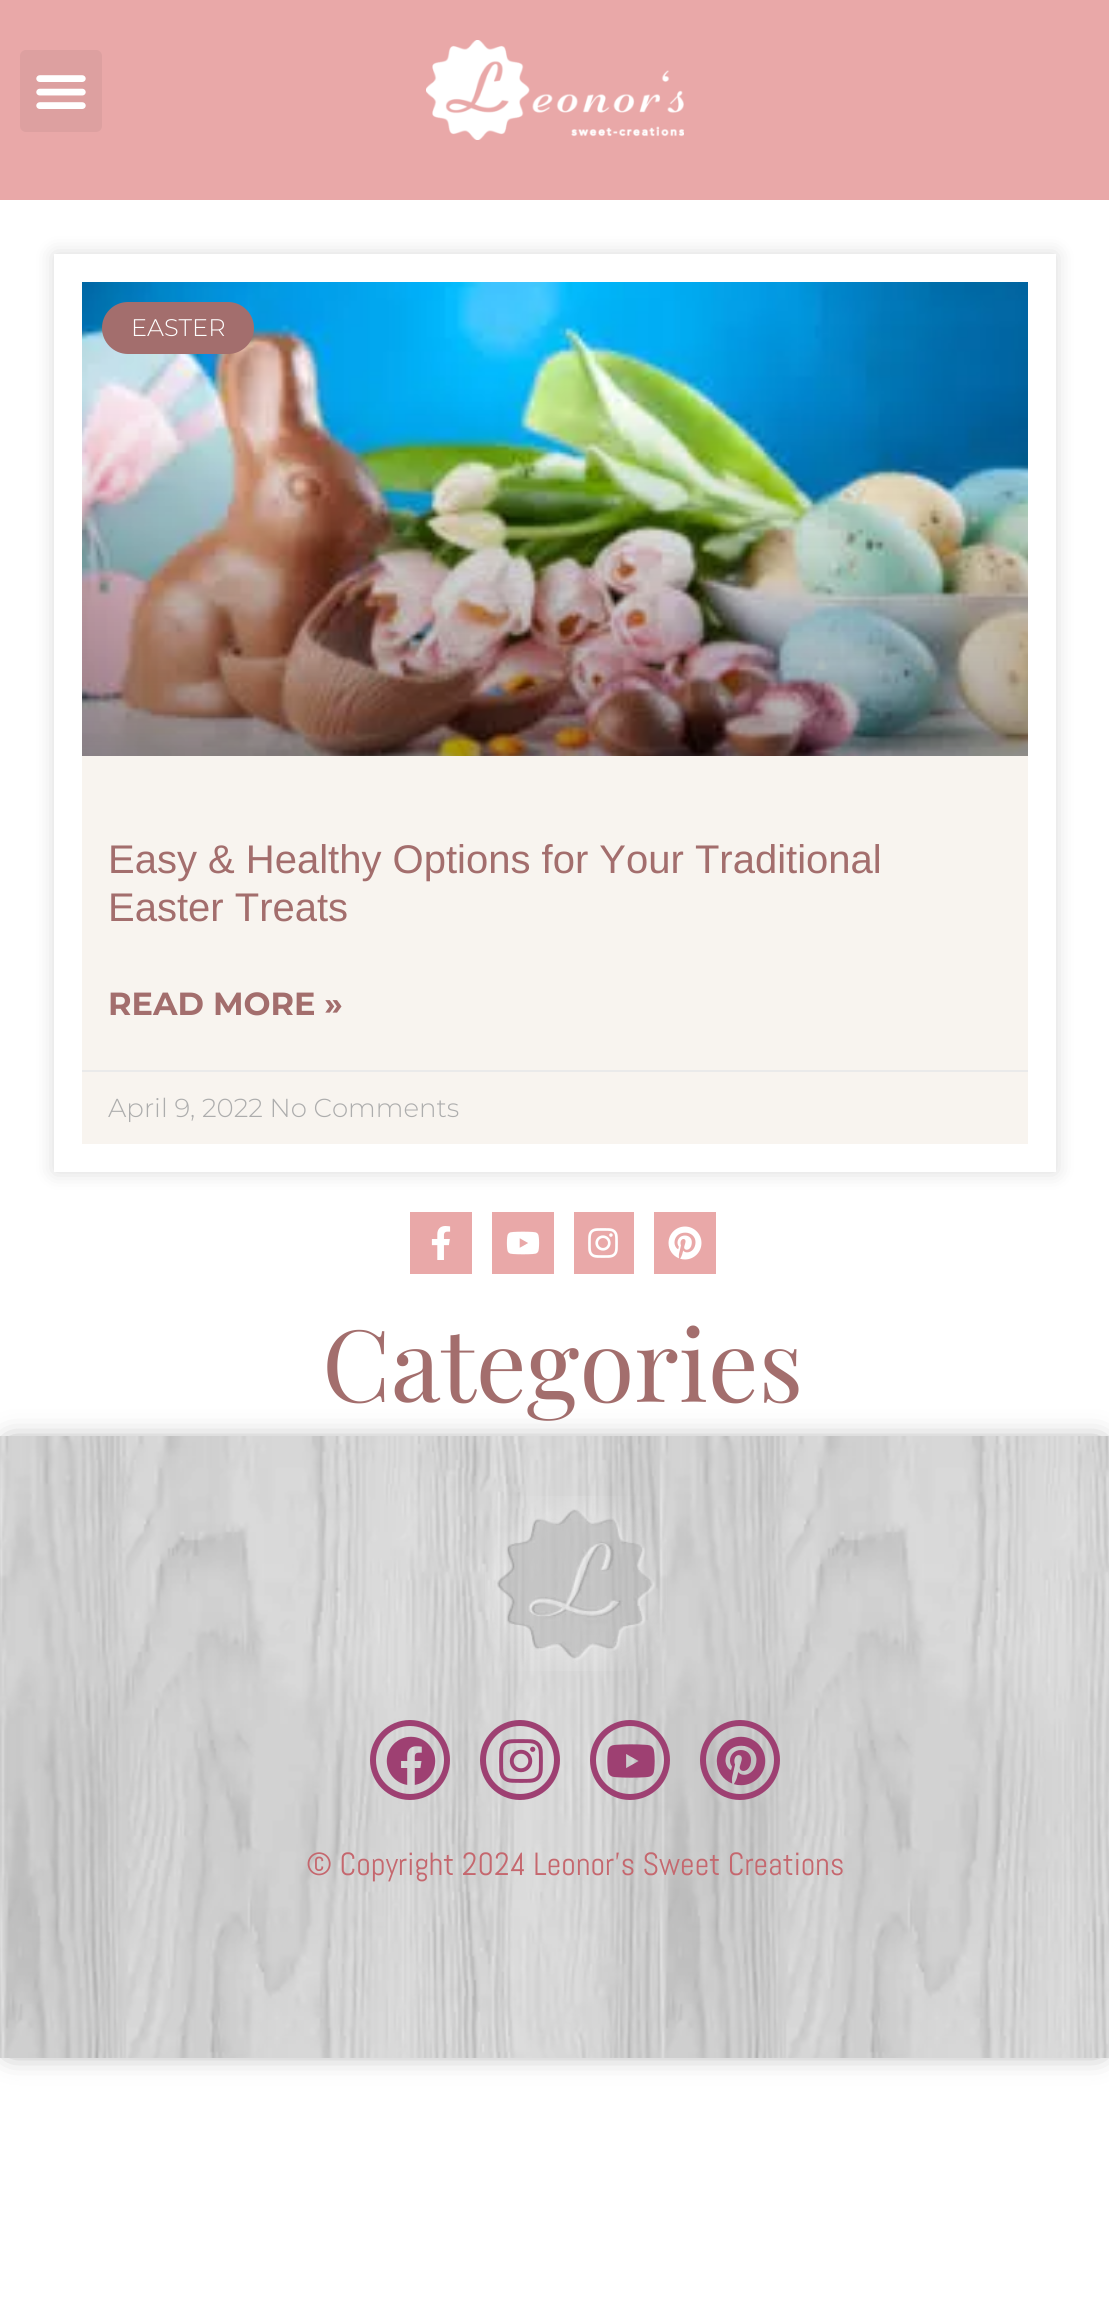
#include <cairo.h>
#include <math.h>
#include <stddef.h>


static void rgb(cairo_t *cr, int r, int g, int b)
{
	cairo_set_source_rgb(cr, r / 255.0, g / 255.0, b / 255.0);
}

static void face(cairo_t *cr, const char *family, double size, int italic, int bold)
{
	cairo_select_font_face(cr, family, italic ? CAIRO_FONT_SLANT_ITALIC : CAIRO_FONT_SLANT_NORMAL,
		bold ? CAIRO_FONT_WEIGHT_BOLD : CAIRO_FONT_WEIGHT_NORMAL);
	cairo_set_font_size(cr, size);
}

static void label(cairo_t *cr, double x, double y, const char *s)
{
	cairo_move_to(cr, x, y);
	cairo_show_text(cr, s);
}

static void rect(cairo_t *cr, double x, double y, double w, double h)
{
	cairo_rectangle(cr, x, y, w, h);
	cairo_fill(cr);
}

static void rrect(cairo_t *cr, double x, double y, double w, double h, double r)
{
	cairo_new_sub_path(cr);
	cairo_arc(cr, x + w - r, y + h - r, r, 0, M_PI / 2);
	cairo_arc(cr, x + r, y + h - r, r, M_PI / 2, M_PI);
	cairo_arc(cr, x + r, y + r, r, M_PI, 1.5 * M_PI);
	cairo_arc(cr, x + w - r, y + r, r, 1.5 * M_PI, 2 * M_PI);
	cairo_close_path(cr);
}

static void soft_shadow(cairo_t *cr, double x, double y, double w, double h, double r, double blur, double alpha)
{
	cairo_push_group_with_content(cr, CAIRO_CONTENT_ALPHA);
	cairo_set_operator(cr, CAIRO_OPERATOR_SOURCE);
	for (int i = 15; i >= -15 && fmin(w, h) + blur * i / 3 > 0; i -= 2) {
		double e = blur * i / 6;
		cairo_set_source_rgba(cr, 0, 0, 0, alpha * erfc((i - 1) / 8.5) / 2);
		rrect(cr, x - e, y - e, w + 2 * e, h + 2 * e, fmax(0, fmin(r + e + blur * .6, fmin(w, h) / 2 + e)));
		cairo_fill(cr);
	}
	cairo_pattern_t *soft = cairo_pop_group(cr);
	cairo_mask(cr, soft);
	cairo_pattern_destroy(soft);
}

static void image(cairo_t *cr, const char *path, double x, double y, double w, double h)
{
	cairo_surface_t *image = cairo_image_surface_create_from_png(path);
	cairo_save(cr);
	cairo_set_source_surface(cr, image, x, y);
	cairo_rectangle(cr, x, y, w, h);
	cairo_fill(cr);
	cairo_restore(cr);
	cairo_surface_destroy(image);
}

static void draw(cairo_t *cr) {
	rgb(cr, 255, 255, 255);
	cairo_paint(cr);
	rgb(cr, 233, 168, 168);
	rect(cr, 0, 0, 1109, 200);
	rgb(cr, 221, 160, 160);
	rrect(cr, 20, 50, 82, 82, 6);
	cairo_fill(cr);
	image(cr, "image0.png", 36, 75, 50, 34);
	image(cr, "image1.png", 426, 40, 258, 100);
	rgb(cr, 0, 0, 0);
	soft_shadow(cr, 54, 254, 1002, 918, 0, 10, 0.15);
	rgb(cr, 248, 244, 239);
	rect(cr, 82, 756, 946, 388);
	cairo_rectangle(cr, 68, 268, 974, 890);
	rgb(cr, 255, 255, 255);
	cairo_set_line_width(cr, 28);
	cairo_stroke(cr);
	image(cr, "image2.png", 82, 282, 946, 474);
	rgb(cr, 163, 110, 109);
	rrect(cr, 102, 302, 152, 52, 26);
	cairo_fill(cr);
	face(cr, "Montserrat Light", 24, 0, 0);
	rgb(cr, 255, 255, 255);
	label(cr, 131, 336, "EASTER");
	face(cr, "Liberation Sans", 40, 0, 0);
	rgb(cr, 163, 110, 109);
	label(cr, 108, 873, "Easy & Healthy Options for Your Traditional");
	label(cr, 108, 921, "Easter Treats");
	face(cr, "Montserrat", 32, 0, 1);
	label(cr, 108, 1015, "READ MORE »");
	rgb(cr, 234, 234, 234);
	rect(cr, 82, 1070, 946, 2);
	face(cr, "Montserrat Light", 26, 0, 0);
	rgb(cr, 173, 173, 173);
	label(cr, 108, 1117, "April 9, 2022 No Comments");
	rgb(cr, 233, 168, 168);
	rect(cr, 410, 1212, 62, 62);
	image(cr, "image3.png", 431, 1226, 20, 34);
	rect(cr, 492, 1212, 62, 62);
	image(cr, "image4.png", 506, 1231, 34, 24);
	rect(cr, 574, 1212, 60, 62);
	image(cr, "image5.png", 588, 1228, 30, 30);
	rect(cr, 654, 1212, 62, 62);
	image(cr, "image6.png", 668, 1226, 34, 34);
	face(cr, "Playfair Display", 100, 0, 0);
	rgb(cr, 163, 110, 109);
	label(cr, 322, 1402, "Categories");
	rgb(cr, 0, 0, 0);
	soft_shadow(cr, 10, 1446, 1090, 602, 0, 15, 0.5);
	image(cr, "image7.png", 0, 1436, 1109, 622);
	image(cr, "image8.png", 485, 1496, 182, 175);
	cairo_arc(cr, 410, 1760, 37, 0, 2 * M_PI);
	rgb(cr, 158, 64, 114);
	cairo_set_line_width(cr, 6);
	cairo_stroke(cr);
	image(cr, "image9.png", 386, 1736, 50, 49);
	cairo_arc(cr, 520, 1760, 37, 0, 2 * M_PI);
	cairo_stroke(cr);
	image(cr, "image10.png", 499, 1739, 44, 44);
	cairo_arc(cr, 630, 1760, 37, 0, 2 * M_PI);
	cairo_stroke(cr);
	image(cr, "image11.png", 607, 1744, 48, 34);
	cairo_arc(cr, 740, 1760, 37, 0, 2 * M_PI);
	cairo_stroke(cr);
	image(cr, "image12.png", 716, 1736, 50, 50);
	face(cr, "Abel", 32, 0, 0);
	rgb(cr, 197, 103, 110);
	label(cr, 306, 1875, "© Copyright 2024 Leonor’s Sweet Creations");
}

int main(void) {
	cairo_surface_t *surface = cairo_image_surface_create(CAIRO_FORMAT_RGB24, 1109, 2316);
	cairo_t *cr = cairo_create(surface);
	cairo_font_options_t *options = cairo_font_options_create();
	cairo_font_options_set_hint_metrics(options, CAIRO_HINT_METRICS_OFF);
	cairo_font_options_set_hint_style(options, CAIRO_HINT_STYLE_NONE);
	cairo_set_font_options(cr, options);
	cairo_set_miter_limit(cr, 4);
	draw(cr);
	cairo_surface_write_to_png(surface, "render.png");
	cairo_font_options_destroy(options);
	cairo_destroy(cr);
	cairo_surface_destroy(surface);
	return 0;
}
